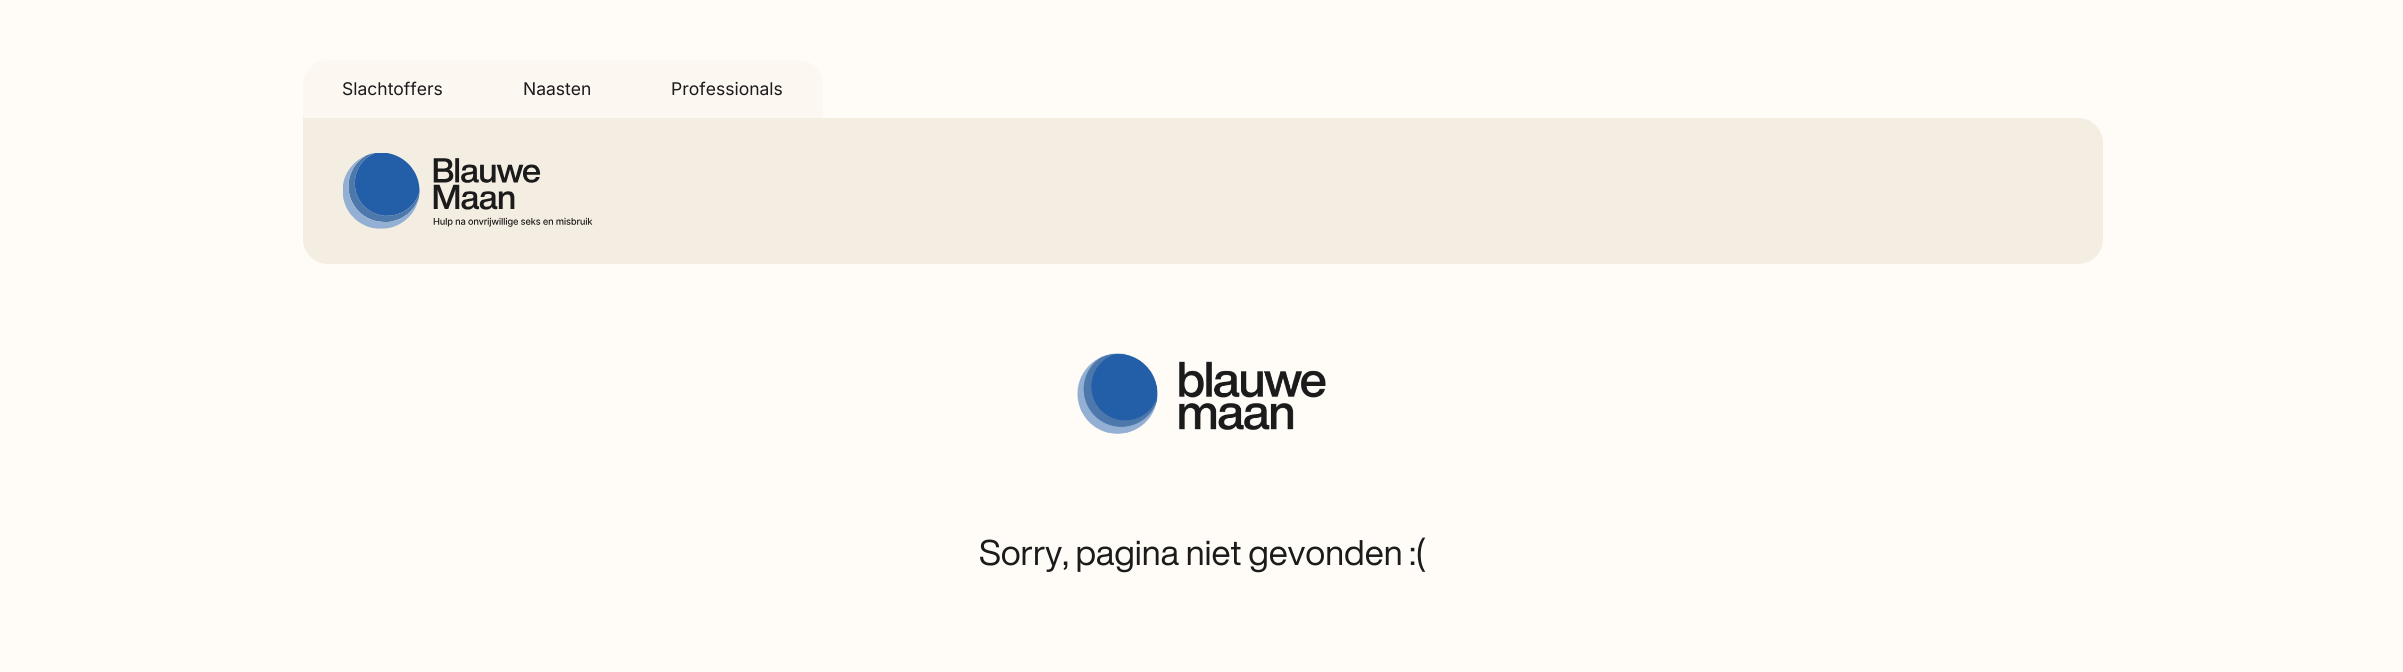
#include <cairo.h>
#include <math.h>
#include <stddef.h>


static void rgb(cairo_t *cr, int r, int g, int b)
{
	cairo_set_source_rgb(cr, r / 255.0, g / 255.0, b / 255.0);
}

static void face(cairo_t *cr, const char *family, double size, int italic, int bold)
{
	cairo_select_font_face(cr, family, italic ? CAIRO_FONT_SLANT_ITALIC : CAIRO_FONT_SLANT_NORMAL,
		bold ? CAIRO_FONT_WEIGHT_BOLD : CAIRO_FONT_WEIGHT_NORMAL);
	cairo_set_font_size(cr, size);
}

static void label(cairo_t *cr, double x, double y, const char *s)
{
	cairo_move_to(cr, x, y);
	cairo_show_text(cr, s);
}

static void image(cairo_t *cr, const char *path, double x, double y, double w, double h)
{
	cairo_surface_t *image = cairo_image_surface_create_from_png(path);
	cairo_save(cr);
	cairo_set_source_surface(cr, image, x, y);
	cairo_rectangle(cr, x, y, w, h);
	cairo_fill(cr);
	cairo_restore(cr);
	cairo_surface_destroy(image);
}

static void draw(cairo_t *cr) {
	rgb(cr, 255, 252, 248);
	cairo_paint(cr);
	rgb(cr, 252, 247, 241);
	cairo_new_path(cr);
	cairo_move_to(cr, 328, 60);
	cairo_line_to(cr, 798, 60);
	cairo_curve_to(cr, 812, 60, 823, 71, 823, 85);
	cairo_line_to(cr, 823, 118);
	cairo_line_to(cr, 303, 118);
	cairo_line_to(cr, 303, 85);
	cairo_curve_to(cr, 303, 71, 314, 60, 328, 60);
	cairo_close_path(cr);
	cairo_fill(cr);
	face(cr, "Inter", 17.5, 0, 0);
	rgb(cr, 27, 27, 27);
	label(cr, 342, 95, "Slachtoffers");
	label(cr, 523, 95, "Naasten");
	label(cr, 671, 95, "Professionals");
	rgb(cr, 244, 237, 225);
	cairo_new_path(cr);
	cairo_move_to(cr, 303, 118);
	cairo_line_to(cr, 2078, 118);
	cairo_curve_to(cr, 2092, 118, 2103, 129, 2103, 143);
	cairo_line_to(cr, 2103, 239);
	cairo_curve_to(cr, 2103, 253, 2092, 264, 2078, 264);
	cairo_line_to(cr, 328, 264);
	cairo_curve_to(cr, 314, 264, 303, 253, 303, 239);
	cairo_close_path(cr);
	cairo_fill(cr);
	image(cr, "image0.png", 343, 153, 250, 76);
	image(cr, "image1.png", 1077, 353, 249, 81);
	face(cr, "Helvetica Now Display", 35, 0, 0);
	rgb(cr, 27, 27, 27);
	label(cr, 979, 565, "Sorry, pagina niet gevonden :(");
}

int main(void) {
	cairo_surface_t *surface = cairo_image_surface_create(CAIRO_FORMAT_RGB24, 2403, 672);
	cairo_t *cr = cairo_create(surface);
	cairo_font_options_t *options = cairo_font_options_create();
	cairo_font_options_set_hint_metrics(options, CAIRO_HINT_METRICS_OFF);
	cairo_font_options_set_hint_style(options, CAIRO_HINT_STYLE_NONE);
	cairo_set_font_options(cr, options);
	cairo_set_miter_limit(cr, 4);
	draw(cr);
	cairo_surface_write_to_png(surface, "render.png");
	cairo_font_options_destroy(options);
	cairo_destroy(cr);
	cairo_surface_destroy(surface);
	return 0;
}
